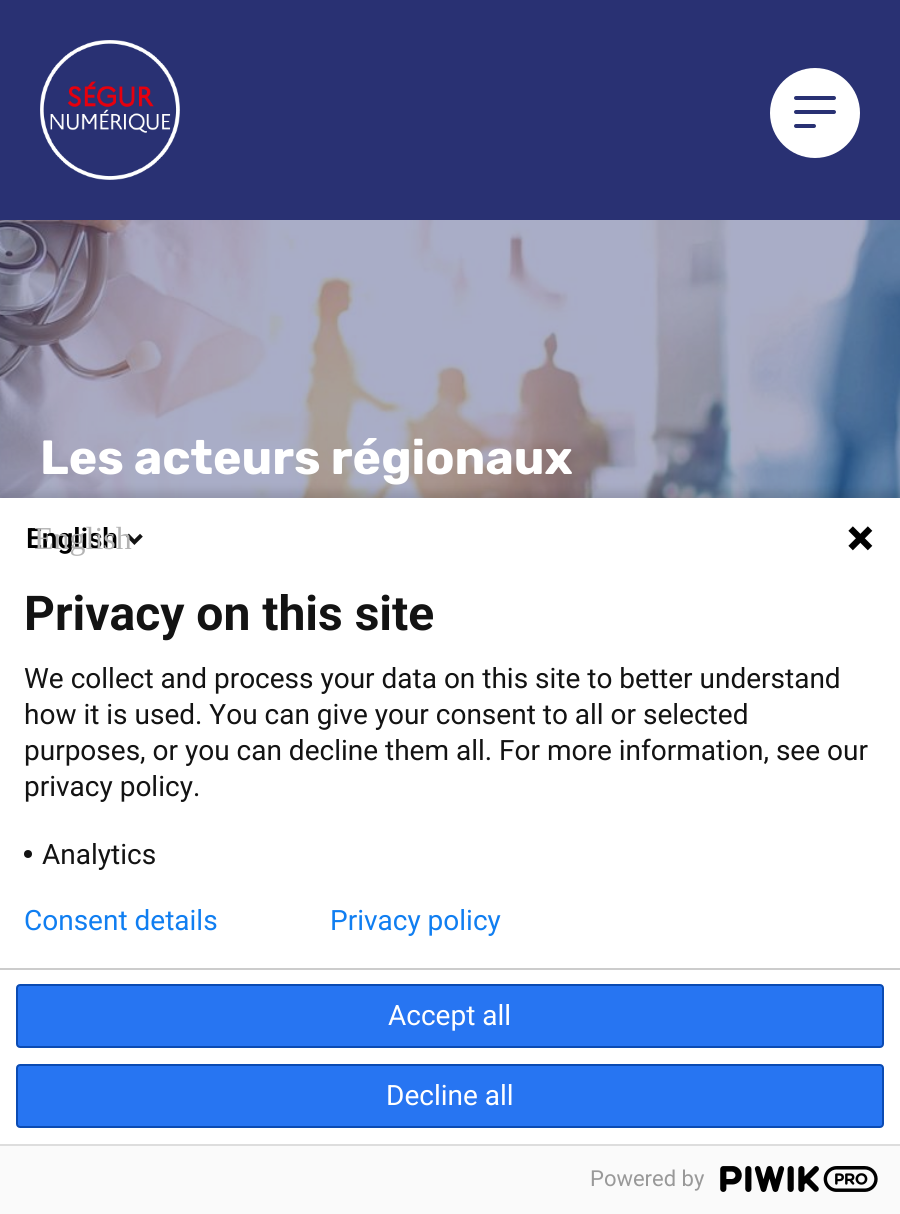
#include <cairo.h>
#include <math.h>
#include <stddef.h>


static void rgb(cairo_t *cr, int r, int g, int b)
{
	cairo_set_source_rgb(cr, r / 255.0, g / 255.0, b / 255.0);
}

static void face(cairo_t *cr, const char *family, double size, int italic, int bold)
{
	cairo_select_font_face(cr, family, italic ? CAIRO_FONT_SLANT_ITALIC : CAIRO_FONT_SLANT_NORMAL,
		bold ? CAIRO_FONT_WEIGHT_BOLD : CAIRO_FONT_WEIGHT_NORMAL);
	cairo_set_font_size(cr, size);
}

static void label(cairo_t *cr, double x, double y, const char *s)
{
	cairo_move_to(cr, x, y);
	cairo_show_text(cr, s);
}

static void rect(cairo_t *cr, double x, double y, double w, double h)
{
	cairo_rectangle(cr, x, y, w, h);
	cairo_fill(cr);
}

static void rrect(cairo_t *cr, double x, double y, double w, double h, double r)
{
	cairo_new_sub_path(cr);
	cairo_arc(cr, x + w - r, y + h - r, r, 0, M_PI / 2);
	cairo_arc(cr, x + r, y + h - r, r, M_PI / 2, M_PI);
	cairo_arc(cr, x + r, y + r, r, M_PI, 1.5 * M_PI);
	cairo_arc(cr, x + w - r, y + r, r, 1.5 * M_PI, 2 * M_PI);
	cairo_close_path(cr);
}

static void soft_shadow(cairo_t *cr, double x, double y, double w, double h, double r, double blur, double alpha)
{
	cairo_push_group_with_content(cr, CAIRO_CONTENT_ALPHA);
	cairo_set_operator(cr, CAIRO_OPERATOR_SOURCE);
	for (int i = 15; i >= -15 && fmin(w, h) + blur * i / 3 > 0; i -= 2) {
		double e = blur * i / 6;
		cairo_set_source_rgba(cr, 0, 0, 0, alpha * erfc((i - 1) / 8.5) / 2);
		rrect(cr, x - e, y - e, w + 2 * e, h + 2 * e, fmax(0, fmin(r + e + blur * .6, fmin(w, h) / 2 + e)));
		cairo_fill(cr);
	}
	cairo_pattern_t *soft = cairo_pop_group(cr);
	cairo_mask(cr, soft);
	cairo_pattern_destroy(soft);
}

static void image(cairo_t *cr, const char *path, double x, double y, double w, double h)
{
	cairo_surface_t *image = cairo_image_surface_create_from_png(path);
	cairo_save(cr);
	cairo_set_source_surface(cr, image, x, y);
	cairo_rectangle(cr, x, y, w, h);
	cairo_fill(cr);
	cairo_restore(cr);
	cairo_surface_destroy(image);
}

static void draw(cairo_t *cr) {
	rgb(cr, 255, 255, 255);
	cairo_paint(cr);
	rgb(cr, 41, 49, 115);
	rect(cr, 0, 0, 900, 220);
	image(cr, "image0.png", 40, 40, 140, 140);
	rgb(cr, 255, 255, 255);
	cairo_arc(cr, 815, 113, 45, 0, 2 * M_PI);
	cairo_fill(cr);
	rgb(cr, 41, 49, 115);
	rrect(cr, 794, 96, 42, 4, 2);
	cairo_fill(cr);
	rrect(cr, 794, 110, 42, 4, 2);
	cairo_fill(cr);
	rrect(cr, 794, 124, 22, 4, 2);
	cairo_fill(cr);
	image(cr, "image1.png", 0, 220, 900, 278);
	face(cr, "Rubik", 48, 0, 1);
	rgb(cr, 255, 255, 255);
	label(cr, 40, 474, "Les acteurs régionaux");
	rgb(cr, 0, 0, 0);
	soft_shadow(cr, -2, 492, 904, 720, 0, 5, 0.14);
	rgb(cr, 255, 255, 255);
	rect(cr, 0, 498, 900, 646);
	face(cr, "Roboto SemiBold", 28, 0, 0);
	rgb(cr, 0, 0, 0);
	label(cr, 26, 548, "English");
	image(cr, "image2.png", 126, 533, 17, 12);
	face(cr, "Liberation Serif", 32, 0, 0);
	rgb(cr, 180, 180, 180);
	label(cr, 34, 549, "English");
	image(cr, "image3.png", 848, 526, 25, 25);
	face(cr, "Roboto", 48, 0, 1);
	rgb(cr, 19, 19, 19);
	label(cr, 24, 630, "Privacy on this site");
	face(cr, "Roboto", 28, 0, 0);
	label(cr, 24, 688, "We collect and process your data on this site to better understand");
	label(cr, 24, 724, "how it is used. You can give your consent to all or selected");
	label(cr, 24, 760, "purposes, or you can decline them all. For more information, see our");
	label(cr, 24, 796, "privacy policy.");
	cairo_new_path(cr);
	cairo_arc(cr, 28, 854, 4, 0, 2 * M_PI);
	cairo_fill(cr);
	label(cr, 42, 864, "Analytics");
	rgb(cr, 204, 204, 204);
	rect(cr, 0, 968, 900, 2);
	rgb(cr, 39, 117, 242);
	rrect(cr, 17, 985, 866, 62, 3);
	cairo_fill_preserve(cr);
	rgb(cr, 11, 75, 179);
	cairo_stroke(cr);
	rgb(cr, 255, 255, 255);
	label(cr, 388, 1025, "Accept all");
	rgb(cr, 39, 117, 242);
	rrect(cr, 17, 1065, 866, 62, 3);
	cairo_fill_preserve(cr);
	rgb(cr, 11, 75, 179);
	cairo_stroke(cr);
	rgb(cr, 255, 255, 255);
	label(cr, 386, 1105, "Decline all");
	rgb(cr, 16, 126, 241);
	label(cr, 24, 930, "Consent details");
	label(cr, 330, 930, "Privacy policy");
	rgb(cr, 250, 250, 250);
	rect(cr, 0, 1146, 900, 68);
	rgb(cr, 221, 221, 221);
	rect(cr, 0, 1144, 900, 2);
	face(cr, "Roboto", 22, 0, 0);
	rgb(cr, 153, 153, 153);
	label(cr, 590, 1186, "Powered by");
	image(cr, "image4.png", 720, 1166, 158, 26);
}

int main(void) {
	cairo_surface_t *surface = cairo_image_surface_create(CAIRO_FORMAT_RGB24, 900, 1214);
	cairo_t *cr = cairo_create(surface);
	cairo_font_options_t *options = cairo_font_options_create();
	cairo_font_options_set_hint_metrics(options, CAIRO_HINT_METRICS_OFF);
	cairo_font_options_set_hint_style(options, CAIRO_HINT_STYLE_NONE);
	cairo_set_font_options(cr, options);
	cairo_set_miter_limit(cr, 4);
	draw(cr);
	cairo_surface_write_to_png(surface, "render.png");
	cairo_font_options_destroy(options);
	cairo_destroy(cr);
	cairo_surface_destroy(surface);
	return 0;
}
